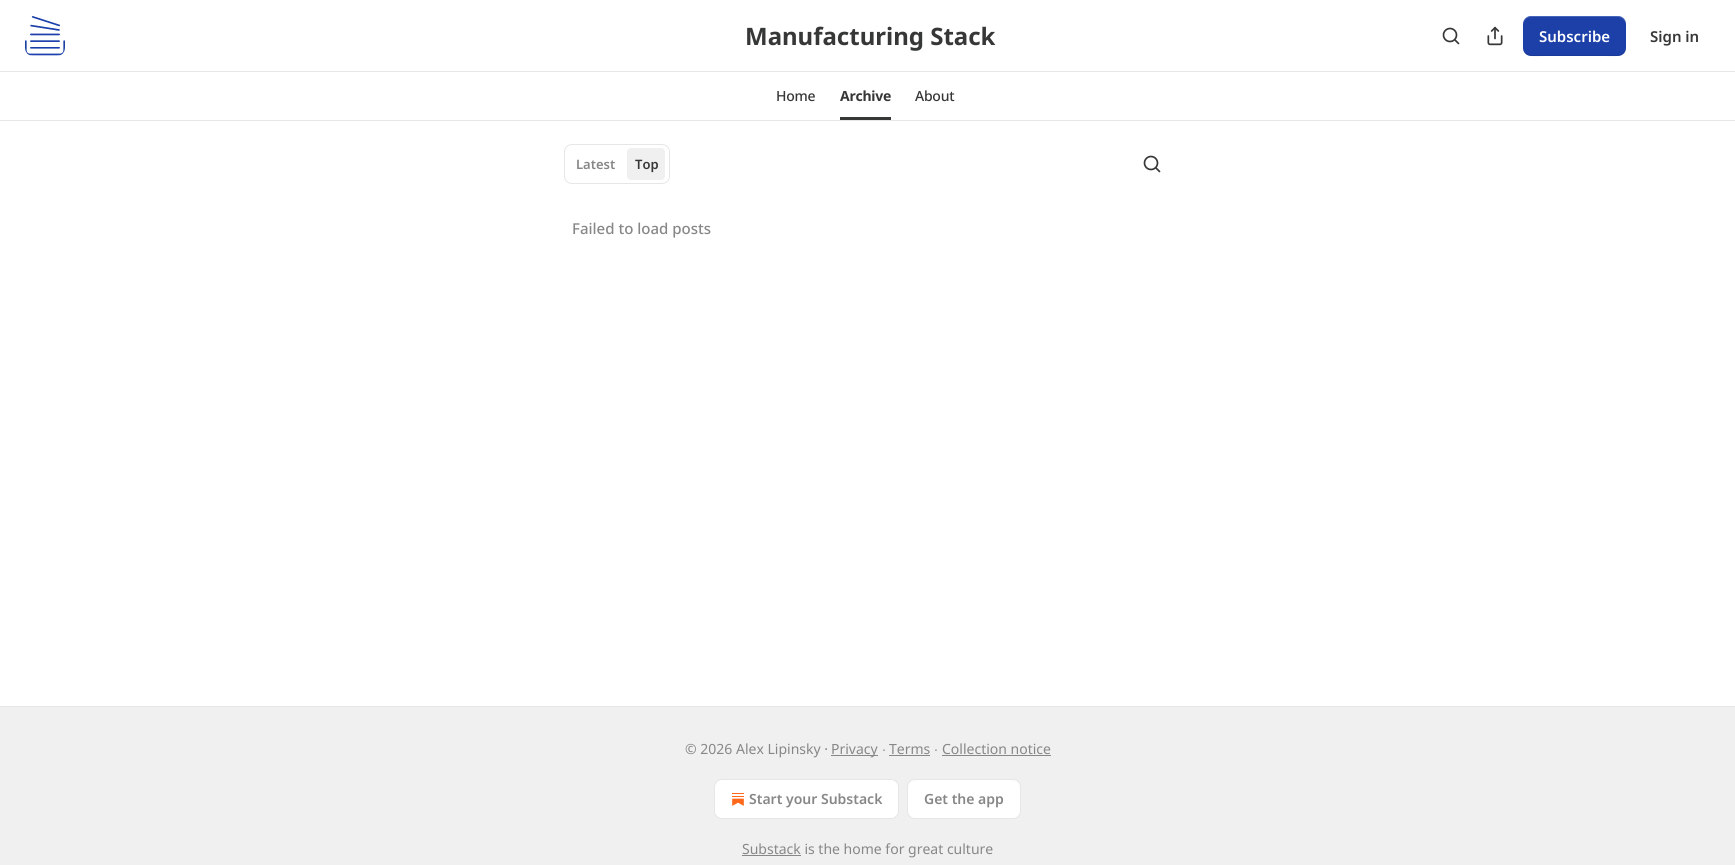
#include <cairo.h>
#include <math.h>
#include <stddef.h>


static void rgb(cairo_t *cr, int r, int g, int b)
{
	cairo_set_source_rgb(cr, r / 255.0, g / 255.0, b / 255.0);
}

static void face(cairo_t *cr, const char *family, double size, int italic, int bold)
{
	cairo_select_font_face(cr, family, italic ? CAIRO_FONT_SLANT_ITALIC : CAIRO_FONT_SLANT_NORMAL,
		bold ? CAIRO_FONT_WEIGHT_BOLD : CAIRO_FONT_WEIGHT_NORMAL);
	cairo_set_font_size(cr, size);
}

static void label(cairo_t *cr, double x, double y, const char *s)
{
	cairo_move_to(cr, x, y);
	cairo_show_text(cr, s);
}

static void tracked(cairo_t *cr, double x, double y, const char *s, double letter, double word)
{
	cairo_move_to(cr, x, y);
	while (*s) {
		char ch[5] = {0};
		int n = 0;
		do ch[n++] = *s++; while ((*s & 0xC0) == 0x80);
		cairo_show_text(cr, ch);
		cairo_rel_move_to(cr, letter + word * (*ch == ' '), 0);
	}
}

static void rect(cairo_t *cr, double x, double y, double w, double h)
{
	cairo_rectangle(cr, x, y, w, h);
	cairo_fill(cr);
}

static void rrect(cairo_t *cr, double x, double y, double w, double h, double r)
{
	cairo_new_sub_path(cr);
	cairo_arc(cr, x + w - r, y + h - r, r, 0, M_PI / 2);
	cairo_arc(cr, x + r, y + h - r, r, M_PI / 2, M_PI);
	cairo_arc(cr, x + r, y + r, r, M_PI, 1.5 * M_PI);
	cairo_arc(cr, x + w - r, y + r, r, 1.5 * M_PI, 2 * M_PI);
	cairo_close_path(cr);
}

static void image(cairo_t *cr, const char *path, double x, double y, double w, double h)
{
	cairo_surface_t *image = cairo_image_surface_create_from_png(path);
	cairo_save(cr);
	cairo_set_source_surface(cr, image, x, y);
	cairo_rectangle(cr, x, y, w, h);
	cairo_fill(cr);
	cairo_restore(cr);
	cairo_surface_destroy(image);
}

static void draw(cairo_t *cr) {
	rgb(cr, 255, 255, 255);
	cairo_paint(cr);
	image(cr, "image0.png", 25, 16, 40, 40);
	face(cr, "Noto Sans", 24, 0, 1);
	rgb(cr, 54, 55, 55);
	label(cr, 745, 45, "Manufacturing Stack");
	cairo_new_path(cr);
	cairo_arc(cr, 1450, 35, 6.5, 0, 2 * M_PI);
	cairo_set_line_width(cr, 1.7);
	cairo_stroke(cr);
	cairo_new_path(cr);
	cairo_move_to(cr, 1458.5, 43.5);
	cairo_line_to(cr, 1455, 40);
	cairo_set_line_cap(cr, CAIRO_LINE_CAP_ROUND);
	cairo_set_line_join(cr, CAIRO_LINE_JOIN_ROUND);
	cairo_stroke(cr);
	image(cr, "image1.png", 1487, 26, 16, 20);
	rgb(cr, 28, 63, 168);
	rrect(cr, 1523, 16, 103, 40, 8);
	cairo_fill(cr);
	cairo_set_source_rgba(cr, 0, 0, 0, 0.1);
	cairo_new_path(cr);
	cairo_move_to(cr, 1523, 47);
	cairo_curve_to(cr, 1523, 59, 1537, 56, 1546, 56);
	cairo_line_to(cr, 1604, 56);
	cairo_curve_to(cr, 1612, 56, 1626, 59, 1626, 47);
	cairo_curve_to(cr, 1626, 51, 1622, 55, 1618, 55);
	cairo_line_to(cr, 1531, 55);
	cairo_curve_to(cr, 1527, 55, 1523, 51, 1523, 47);
	cairo_close_path(cr);
	cairo_fill(cr);
	cairo_set_source_rgba(cr, 1, 1, 1, 0.2);
	cairo_new_path(cr);
	cairo_move_to(cr, 1531, 17);
	cairo_line_to(cr, 1618, 17);
	cairo_curve_to(cr, 1622, 17, 1626, 21, 1626, 25);
	cairo_curve_to(cr, 1626, 13, 1612, 16, 1604, 16);
	cairo_line_to(cr, 1546, 16);
	cairo_curve_to(cr, 1537, 16, 1523, 13, 1523, 25);
	cairo_curve_to(cr, 1523, 21, 1527, 17, 1531, 17);
	cairo_close_path(cr);
	cairo_fill(cr);
	face(cr, "Noto Sans SemiBold", 15, 0, 0);
	rgb(cr, 255, 255, 255);
	label(cr, 1539, 42, "Subscribe");
	rgb(cr, 54, 55, 55);
	label(cr, 1650, 42, "Sign in");
	rgb(cr, 230, 230, 230);
	rect(cr, 0, 71, 1735, 1);
	rect(cr, 0, 120, 1735, 1);
	face(cr, "Noto Sans Medium", 14, 0, 0);
	rgb(cr, 54, 55, 55);
	tracked(cr, 776, 101, "Home", -0.25, 0);
	rect(cr, 840, 117, 51, 3);
	face(cr, "Noto Sans", 14, 0, 1);
	tracked(cr, 840, 101, "Archive", -0.25, 0);
	face(cr, "Noto Sans Medium", 14, 0, 0);
	tracked(cr, 915, 101, "About", -0.25, 0);
	rrect(cr, 564.5, 144.5, 105, 39, 7.5);
	rgb(cr, 230, 230, 230);
	cairo_set_line_width(cr, 1);
	cairo_set_line_cap(cr, CAIRO_LINE_CAP_BUTT);
	cairo_set_line_join(cr, CAIRO_LINE_JOIN_MITER);
	cairo_stroke(cr);
	face(cr, "Noto Sans SemiBold", 13, 0, 0);
	rgb(cr, 134, 135, 135);
	label(cr, 576, 169, "Latest");
	rgb(cr, 240, 240, 240);
	rrect(cr, 627, 148, 38, 32, 4);
	cairo_fill(cr);
	rgb(cr, 54, 55, 55);
	label(cr, 635, 169, "Top");
	cairo_new_path(cr);
	cairo_arc(cr, 1151, 163, 6.5, 0, 2 * M_PI);
	cairo_set_line_width(cr, 1.7);
	cairo_stroke(cr);
	cairo_new_path(cr);
	cairo_move_to(cr, 1159.5, 171.5);
	cairo_line_to(cr, 1156, 168);
	cairo_set_line_cap(cr, CAIRO_LINE_CAP_ROUND);
	cairo_set_line_join(cr, CAIRO_LINE_JOIN_ROUND);
	cairo_stroke(cr);
	face(cr, "Noto Sans Medium", 15, 0, 0);
	rgb(cr, 134, 135, 135);
	label(cr, 572, 234, "Failed to load posts");
	rgb(cr, 240, 240, 240);
	rect(cr, 0, 707, 1735, 158);
	rgb(cr, 230, 230, 230);
	rect(cr, 0, 706, 1735, 1);
	face(cr, "Noto Sans", 14, 0, 0);
	rgb(cr, 134, 135, 135);
	label(cr, 685, 754, "© 2026 Alex Lipinsky ·");
	rect(cr, 831, 755, 47, 1);
	label(cr, 831, 754, "Privacy");
	face(cr, "Liberation Sans", 14, 0, 0);
	label(cr, 882, 754, "∙");
	face(cr, "Noto Sans", 14, 0, 0);
	label(cr, 889, 754, "Terms");
	rect(cr, 889, 755, 41, 1);
	face(cr, "Liberation Sans", 14, 0, 0);
	label(cr, 934, 754, "∙");
	face(cr, "Noto Sans", 14, 0, 0);
	label(cr, 942, 754, "Collection notice");
	rect(cr, 942, 755, 109, 1);
	rgb(cr, 255, 255, 255);
	rrect(cr, 714.5, 779.5, 184, 39, 7.5);
	cairo_fill_preserve(cr);
	rgb(cr, 230, 230, 230);
	cairo_set_line_width(cr, 1);
	cairo_set_line_cap(cr, CAIRO_LINE_CAP_BUTT);
	cairo_set_line_join(cr, CAIRO_LINE_JOIN_MITER);
	cairo_stroke(cr);
	image(cr, "image2.png", 732, 793, 12, 13);
	face(cr, "Noto Sans SemiBold", 14, 0, 0);
	rgb(cr, 134, 135, 135);
	label(cr, 749, 804, "Start your Substack");
	rgb(cr, 255, 255, 255);
	rrect(cr, 907.5, 779.5, 113, 39, 7.5);
	cairo_fill_preserve(cr);
	rgb(cr, 230, 230, 230);
	cairo_stroke(cr);
	rgb(cr, 134, 135, 135);
	label(cr, 924, 804, "Get the app");
	rect(cr, 742, 855, 59, 1);
	face(cr, "Noto Sans", 14, 0, 0);
	label(cr, 742, 854, "Substack is the home for great culture");
}

int main(void) {
	cairo_surface_t *surface = cairo_image_surface_create(CAIRO_FORMAT_RGB24, 1735, 865);
	cairo_t *cr = cairo_create(surface);
	cairo_font_options_t *options = cairo_font_options_create();
	cairo_font_options_set_hint_metrics(options, CAIRO_HINT_METRICS_OFF);
	cairo_font_options_set_hint_style(options, CAIRO_HINT_STYLE_NONE);
	cairo_set_font_options(cr, options);
	cairo_set_miter_limit(cr, 4);
	draw(cr);
	cairo_surface_write_to_png(surface, "render.png");
	cairo_font_options_destroy(options);
	cairo_destroy(cr);
	cairo_surface_destroy(surface);
	return 0;
}
